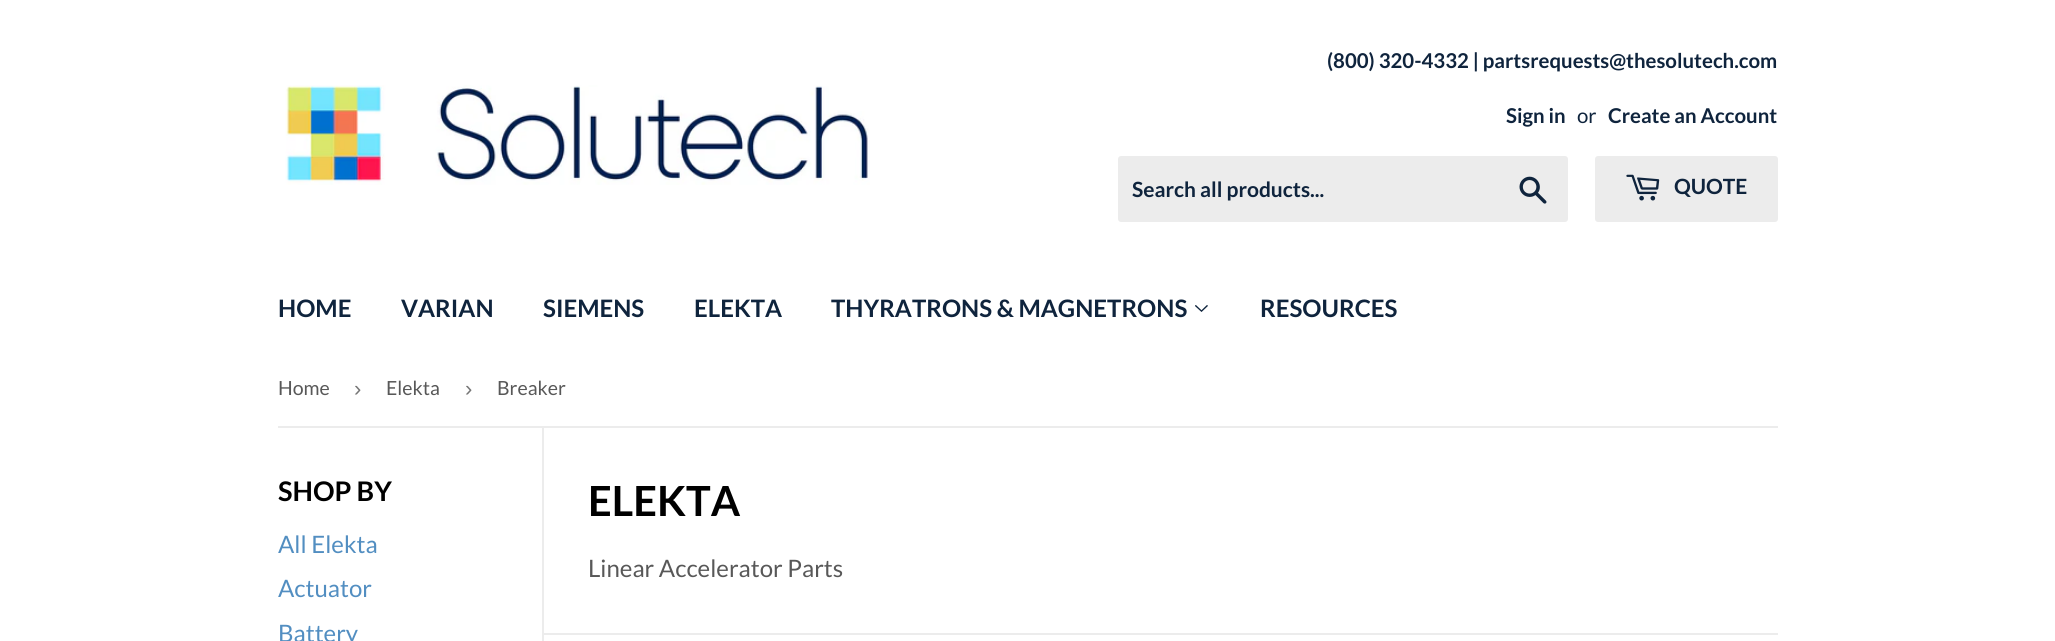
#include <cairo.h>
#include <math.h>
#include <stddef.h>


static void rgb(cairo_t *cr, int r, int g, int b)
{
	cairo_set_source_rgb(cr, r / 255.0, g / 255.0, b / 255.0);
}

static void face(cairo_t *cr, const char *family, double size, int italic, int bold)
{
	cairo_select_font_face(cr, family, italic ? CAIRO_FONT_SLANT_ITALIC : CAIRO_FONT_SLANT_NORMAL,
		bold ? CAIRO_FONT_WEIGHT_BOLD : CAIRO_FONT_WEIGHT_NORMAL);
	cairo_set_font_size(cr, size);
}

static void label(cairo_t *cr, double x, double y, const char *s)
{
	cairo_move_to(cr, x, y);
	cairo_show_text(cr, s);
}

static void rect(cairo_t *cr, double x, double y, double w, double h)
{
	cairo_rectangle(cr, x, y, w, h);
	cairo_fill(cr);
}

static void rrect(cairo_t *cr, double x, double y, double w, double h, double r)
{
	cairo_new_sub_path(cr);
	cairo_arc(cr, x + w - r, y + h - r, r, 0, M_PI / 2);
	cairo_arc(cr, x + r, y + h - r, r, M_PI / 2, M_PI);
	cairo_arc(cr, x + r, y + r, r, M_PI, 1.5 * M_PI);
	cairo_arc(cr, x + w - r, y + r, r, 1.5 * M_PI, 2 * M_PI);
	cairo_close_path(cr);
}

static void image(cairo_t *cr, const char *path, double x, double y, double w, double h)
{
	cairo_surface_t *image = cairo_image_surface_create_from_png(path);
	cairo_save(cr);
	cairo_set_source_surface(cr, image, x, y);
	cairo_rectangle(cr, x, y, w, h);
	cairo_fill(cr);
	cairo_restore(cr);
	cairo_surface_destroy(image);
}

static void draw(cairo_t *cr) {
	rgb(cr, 255, 255, 255);
	cairo_paint(cr);
	image(cr, "image0.png", 285, 85, 585, 100);
	face(cr, "Lato", 20.4, 0, 1);
	rgb(cr, 15, 36, 61);
	label(cr, 1327, 68, "(800) 320-4332 | partsrequests@thesolutech.com");
	label(cr, 1506, 123, "Sign in");
	face(cr, "Lato", 20.4, 0, 0);
	label(cr, 1577, 123, "or");
	face(cr, "Lato", 20.4, 0, 1);
	label(cr, 1608, 123, "Create an Account");
	rgb(cr, 236, 236, 236);
	rrect(cr, 1118, 156, 450, 66, 3);
	cairo_fill(cr);
	face(cr, "Lato", 21, 0, 1);
	rgb(cr, 15, 36, 61);
	label(cr, 1132, 197, "Search all products...");
	image(cr, "image1.png", 1519, 176, 28, 28);
	rgb(cr, 236, 236, 236);
	rrect(cr, 1595, 156, 183, 66, 3);
	cairo_fill(cr);
	image(cr, "image2.png", 1626, 174, 34, 27);
	rgb(cr, 15, 36, 61);
	label(cr, 1674, 194, "QUOTE");
	face(cr, "Lato", 24, 0, 1);
	label(cr, 278, 317, "HOME");
	label(cr, 401, 317, "VARIAN");
	label(cr, 543, 317, "SIEMENS");
	label(cr, 694, 317, "ELEKTA");
	label(cr, 831, 317, "THYRATRONS & MAGNETRONS");
	image(cr, "image3.png", 1195, 305, 13, 7);
	label(cr, 1260, 317, "RESOURCES");
	rgb(cr, 236, 236, 236);
	rect(cr, 278, 426, 1500, 2);
	face(cr, "Lato", 19.5, 0, 0);
	rgb(cr, 88, 88, 88);
	label(cr, 278, 395, "Home");
	face(cr, "Liberation Sans", 22, 0, 0);
	rgb(cr, 118, 118, 118);
	label(cr, 354, 396, "›");
	face(cr, "Lato", 19.5, 0, 0);
	rgb(cr, 88, 88, 88);
	label(cr, 386, 395, "Elekta");
	face(cr, "Liberation Sans", 22, 0, 0);
	rgb(cr, 118, 118, 118);
	label(cr, 465, 396, "›");
	face(cr, "Lato", 19.5, 0, 0);
	rgb(cr, 88, 88, 88);
	label(cr, 497, 395, "Breaker");
	face(cr, "Lato", 27, 0, 1);
	rgb(cr, 0, 0, 0);
	label(cr, 278, 501, "SHOP BY");
	face(cr, "Lato", 24, 0, 0);
	rgb(cr, 82, 142, 193);
	label(cr, 278, 553, "All Elekta");
	label(cr, 278, 597, "Actuator");
	label(cr, 278, 642, "Battery");
	rgb(cr, 236, 236, 236);
	rect(cr, 542, 428, 2, 213);
	face(cr, "Lato", 41.5, 0, 1);
	rgb(cr, 0, 0, 0);
	label(cr, 588, 516, "ELEKTA");
	face(cr, "Lato", 24, 0, 0);
	rgb(cr, 88, 88, 88);
	label(cr, 588, 577, "Linear Accelerator Parts");
	rgb(cr, 236, 236, 236);
	rect(cr, 543, 633, 1235, 2);
}

int main(void) {
	cairo_surface_t *surface = cairo_image_surface_create(CAIRO_FORMAT_RGB24, 2055, 641);
	cairo_t *cr = cairo_create(surface);
	cairo_font_options_t *options = cairo_font_options_create();
	cairo_font_options_set_hint_metrics(options, CAIRO_HINT_METRICS_OFF);
	cairo_font_options_set_hint_style(options, CAIRO_HINT_STYLE_NONE);
	cairo_set_font_options(cr, options);
	cairo_set_miter_limit(cr, 4);
	draw(cr);
	cairo_surface_write_to_png(surface, "render.png");
	cairo_font_options_destroy(options);
	cairo_destroy(cr);
	cairo_surface_destroy(surface);
	return 0;
}
